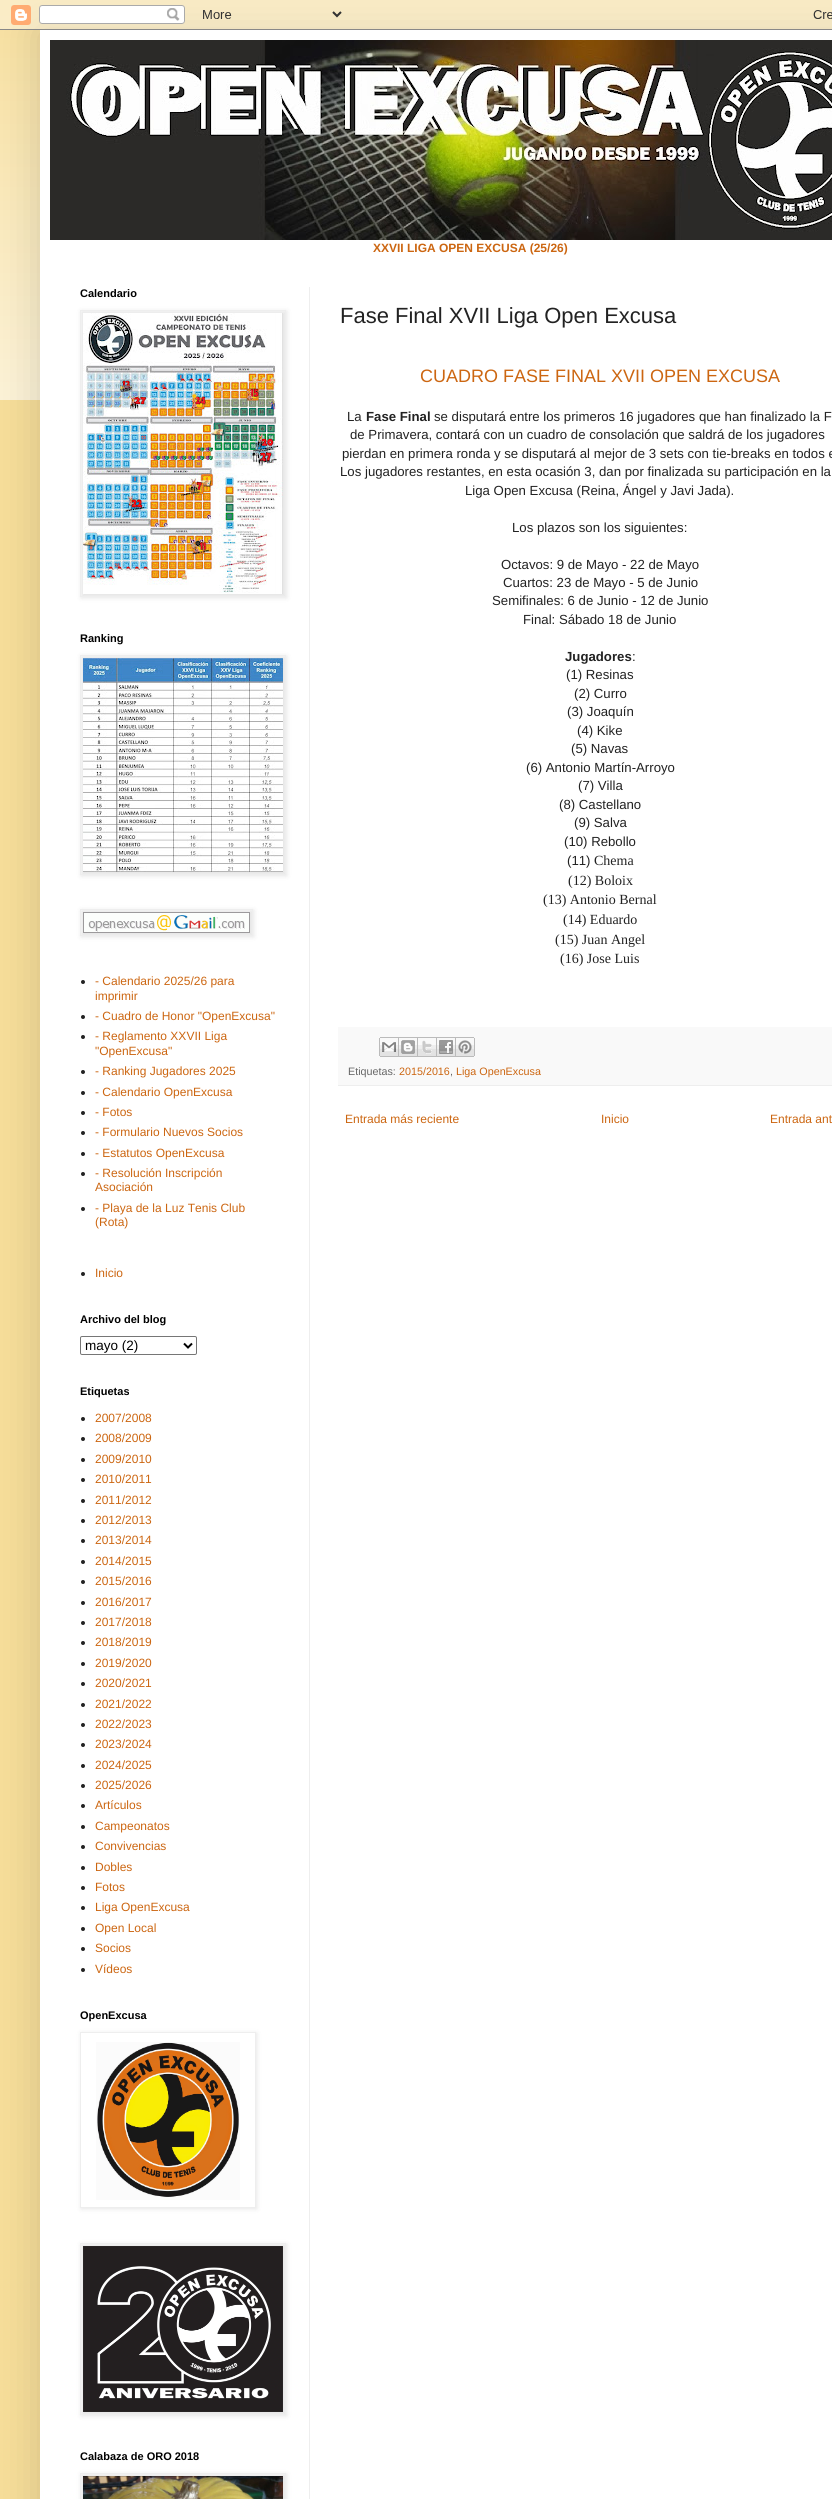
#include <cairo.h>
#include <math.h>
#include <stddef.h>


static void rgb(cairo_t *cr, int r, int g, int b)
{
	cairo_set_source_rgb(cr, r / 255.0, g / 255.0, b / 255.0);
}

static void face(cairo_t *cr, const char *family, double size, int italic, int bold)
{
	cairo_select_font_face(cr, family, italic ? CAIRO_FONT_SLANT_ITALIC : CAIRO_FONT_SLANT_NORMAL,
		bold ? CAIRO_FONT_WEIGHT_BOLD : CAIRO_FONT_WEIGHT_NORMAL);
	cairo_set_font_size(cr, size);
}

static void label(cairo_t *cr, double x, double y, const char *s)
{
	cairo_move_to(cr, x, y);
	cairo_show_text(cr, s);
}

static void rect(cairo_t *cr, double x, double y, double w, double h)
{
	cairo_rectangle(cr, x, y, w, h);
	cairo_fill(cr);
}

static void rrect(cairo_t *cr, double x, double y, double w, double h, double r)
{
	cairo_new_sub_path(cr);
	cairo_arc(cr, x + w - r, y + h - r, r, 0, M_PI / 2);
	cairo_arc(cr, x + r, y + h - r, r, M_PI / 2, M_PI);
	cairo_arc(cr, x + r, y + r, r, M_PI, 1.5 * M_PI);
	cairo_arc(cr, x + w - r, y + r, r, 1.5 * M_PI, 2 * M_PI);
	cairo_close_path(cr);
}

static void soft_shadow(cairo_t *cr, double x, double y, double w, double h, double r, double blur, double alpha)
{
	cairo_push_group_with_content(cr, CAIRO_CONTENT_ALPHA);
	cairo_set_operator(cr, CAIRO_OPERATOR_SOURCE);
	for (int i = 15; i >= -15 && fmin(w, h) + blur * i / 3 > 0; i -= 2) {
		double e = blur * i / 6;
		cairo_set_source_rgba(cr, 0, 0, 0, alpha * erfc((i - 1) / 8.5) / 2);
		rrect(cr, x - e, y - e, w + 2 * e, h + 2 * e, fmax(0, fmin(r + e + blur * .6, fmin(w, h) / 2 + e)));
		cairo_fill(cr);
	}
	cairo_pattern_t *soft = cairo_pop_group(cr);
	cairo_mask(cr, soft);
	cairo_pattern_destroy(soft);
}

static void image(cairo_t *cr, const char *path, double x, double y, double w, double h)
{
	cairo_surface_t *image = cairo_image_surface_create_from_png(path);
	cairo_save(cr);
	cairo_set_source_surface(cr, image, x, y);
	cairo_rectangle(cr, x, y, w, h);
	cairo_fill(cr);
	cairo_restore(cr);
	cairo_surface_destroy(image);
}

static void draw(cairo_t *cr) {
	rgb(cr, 246, 221, 153);
	cairo_paint(cr);
	image(cr, "image0.png", 0, 0, 832, 400);
	rgb(cr, 0, 0, 0);
	soft_shadow(cr, 40, 30, 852, 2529, 0, 20, 0.15);
	image(cr, "image1.png", 0, 0, 832, 30);
	rgb(cr, 255, 255, 255);
	rect(cr, 40, 30, 792, 2469);
	image(cr, "image2.png", 50, 40, 782, 200);
	face(cr, "Liberation Sans", 12, 0, 1);
	rgb(cr, 204, 102, 17);
	label(cr, 373, 252, "XXVII LIGA OPEN EXCUSA (25/26)");
	rgb(cr, 238, 238, 238);
	rect(cr, 309, 287, 1, 2212);
	face(cr, "Liberation Sans", 11, 0, 1);
	rgb(cr, 0, 0, 0);
	label(cr, 80, 297, "Calendario");
	rgb(cr, 0, 0, 0);
	soft_shadow(cr, 81, 311, 206, 287, 0, 2.5, 0.1);
	cairo_rectangle(cr, 80.5, 310.5, 205, 286);
	rgb(cr, 238, 238, 238);
	cairo_set_line_width(cr, 1);
	cairo_stroke(cr);
	image(cr, "image3.png", 83, 313, 200, 281);
	rgb(cr, 0, 0, 0);
	label(cr, 80, 642, "Ranking");
	rgb(cr, 0, 0, 0);
	soft_shadow(cr, 81, 656, 206, 220, 0, 2.5, 0.1);
	cairo_rectangle(cr, 80.5, 655.5, 205, 219);
	rgb(cr, 238, 238, 238);
	cairo_stroke(cr);
	image(cr, "image4.png", 83, 658, 200, 214);
	rgb(cr, 0, 0, 0);
	soft_shadow(cr, 81, 910, 173, 27, 0, 2.5, 0.1);
	cairo_rectangle(cr, 80.5, 909.5, 172, 26);
	rgb(cr, 238, 238, 238);
	cairo_stroke(cr);
	image(cr, "image5.png", 83, 912, 167, 21);
	rgb(cr, 34, 34, 34);
	cairo_arc(cr, 83, 982, 2, 0, 2 * M_PI);
	cairo_fill(cr);
	face(cr, "Liberation Sans", 12, 0, 0);
	rgb(cr, 204, 102, 17);
	label(cr, 95, 985, "- Calendario 2025/26 para");
	label(cr, 95, 1000, "imprimir");
	rgb(cr, 34, 34, 34);
	cairo_new_path(cr);
	cairo_arc(cr, 83, 1017, 2, 0, 2 * M_PI);
	cairo_fill(cr);
	rgb(cr, 204, 102, 17);
	label(cr, 95, 1020, "- Cuadro de Honor \"OpenExcusa\"");
	rgb(cr, 34, 34, 34);
	cairo_new_path(cr);
	cairo_arc(cr, 83, 1037, 2, 0, 2 * M_PI);
	cairo_fill(cr);
	rgb(cr, 204, 102, 17);
	label(cr, 95, 1040, "- Reglamento XXVII Liga");
	label(cr, 95, 1055, "\"OpenExcusa\"");
	rgb(cr, 34, 34, 34);
	cairo_new_path(cr);
	cairo_arc(cr, 83, 1072, 2, 0, 2 * M_PI);
	cairo_fill(cr);
	rgb(cr, 204, 102, 17);
	label(cr, 95, 1075, "- Ranking Jugadores 2025");
	rgb(cr, 34, 34, 34);
	cairo_new_path(cr);
	cairo_arc(cr, 83, 1093, 2, 0, 2 * M_PI);
	cairo_fill(cr);
	rgb(cr, 204, 102, 17);
	label(cr, 95, 1096, "- Calendario OpenExcusa");
	rgb(cr, 34, 34, 34);
	cairo_new_path(cr);
	cairo_arc(cr, 83, 1113, 2, 0, 2 * M_PI);
	cairo_fill(cr);
	rgb(cr, 204, 102, 17);
	label(cr, 95, 1116, "- Fotos");
	rgb(cr, 34, 34, 34);
	cairo_new_path(cr);
	cairo_arc(cr, 83, 1133, 2, 0, 2 * M_PI);
	cairo_fill(cr);
	rgb(cr, 204, 102, 17);
	label(cr, 95, 1136, "- Formulario Nuevos Socios");
	rgb(cr, 34, 34, 34);
	cairo_new_path(cr);
	cairo_arc(cr, 83, 1154, 2, 0, 2 * M_PI);
	cairo_fill(cr);
	rgb(cr, 204, 102, 17);
	label(cr, 95, 1157, "- Estatutos OpenExcusa");
	rgb(cr, 34, 34, 34);
	cairo_new_path(cr);
	cairo_arc(cr, 83, 1174, 2, 0, 2 * M_PI);
	cairo_fill(cr);
	rgb(cr, 204, 102, 17);
	label(cr, 95, 1177, "- Resolución Inscripción");
	label(cr, 95, 1191, "Asociación");
	rgb(cr, 34, 34, 34);
	cairo_new_path(cr);
	cairo_arc(cr, 83, 1209, 2, 0, 2 * M_PI);
	cairo_fill(cr);
	rgb(cr, 204, 102, 17);
	label(cr, 95, 1212, "- Playa de la Luz Tenis Club");
	label(cr, 95, 1226, "(Rota)");
	rgb(cr, 34, 34, 34);
	cairo_new_path(cr);
	cairo_arc(cr, 83, 1274, 2, 0, 2 * M_PI);
	cairo_fill(cr);
	rgb(cr, 204, 102, 17);
	label(cr, 95, 1277, "Inicio");
	face(cr, "Liberation Sans", 11, 0, 1);
	rgb(cr, 0, 0, 0);
	label(cr, 80, 1323, "Archivo del blog");
	rrect(cr, 80.5, 1336.5, 116, 18, 1.5);
	rgb(cr, 118, 118, 118);
	cairo_stroke(cr);
	cairo_new_path(cr);
	cairo_move_to(cr, 184, 1343.5);
	cairo_line_to(cr, 188, 1347.5);
	cairo_line_to(cr, 192, 1343.5);
	rgb(cr, 0, 0, 0);
	cairo_set_line_width(cr, 2);
	cairo_stroke(cr);
	face(cr, "Liberation Sans", 13.5, 0, 0);
	label(cr, 85, 1350, "mayo (2)");
	face(cr, "Liberation Sans", 11, 0, 1);
	label(cr, 80, 1395, "Etiquetas");
	rgb(cr, 34, 34, 34);
	cairo_new_path(cr);
	cairo_arc(cr, 83, 1419, 2, 0, 2 * M_PI);
	cairo_fill(cr);
	face(cr, "Liberation Sans", 12, 0, 0);
	rgb(cr, 204, 102, 17);
	label(cr, 95, 1422, "2007/2008");
	rgb(cr, 34, 34, 34);
	cairo_new_path(cr);
	cairo_arc(cr, 83, 1439, 2, 0, 2 * M_PI);
	cairo_fill(cr);
	rgb(cr, 204, 102, 17);
	label(cr, 95, 1442, "2008/2009");
	rgb(cr, 34, 34, 34);
	cairo_new_path(cr);
	cairo_arc(cr, 83, 1460, 2, 0, 2 * M_PI);
	cairo_fill(cr);
	rgb(cr, 204, 102, 17);
	label(cr, 95, 1463, "2009/2010");
	rgb(cr, 34, 34, 34);
	cairo_new_path(cr);
	cairo_arc(cr, 83, 1480, 2, 0, 2 * M_PI);
	cairo_fill(cr);
	rgb(cr, 204, 102, 17);
	label(cr, 95, 1483, "2010/2011");
	rgb(cr, 34, 34, 34);
	cairo_new_path(cr);
	cairo_arc(cr, 83, 1501, 2, 0, 2 * M_PI);
	cairo_fill(cr);
	rgb(cr, 204, 102, 17);
	label(cr, 95, 1504, "2011/2012");
	rgb(cr, 34, 34, 34);
	cairo_new_path(cr);
	cairo_arc(cr, 83, 1521, 2, 0, 2 * M_PI);
	cairo_fill(cr);
	rgb(cr, 204, 102, 17);
	label(cr, 95, 1524, "2012/2013");
	rgb(cr, 34, 34, 34);
	cairo_new_path(cr);
	cairo_arc(cr, 83, 1541, 2, 0, 2 * M_PI);
	cairo_fill(cr);
	rgb(cr, 204, 102, 17);
	label(cr, 95, 1544, "2013/2014");
	rgb(cr, 34, 34, 34);
	cairo_new_path(cr);
	cairo_arc(cr, 83, 1562, 2, 0, 2 * M_PI);
	cairo_fill(cr);
	rgb(cr, 204, 102, 17);
	label(cr, 95, 1565, "2014/2015");
	rgb(cr, 34, 34, 34);
	cairo_new_path(cr);
	cairo_arc(cr, 83, 1582, 2, 0, 2 * M_PI);
	cairo_fill(cr);
	rgb(cr, 204, 102, 17);
	label(cr, 95, 1585, "2015/2016");
	rgb(cr, 34, 34, 34);
	cairo_new_path(cr);
	cairo_arc(cr, 83, 1603, 2, 0, 2 * M_PI);
	cairo_fill(cr);
	rgb(cr, 204, 102, 17);
	label(cr, 95, 1606, "2016/2017");
	rgb(cr, 34, 34, 34);
	cairo_new_path(cr);
	cairo_arc(cr, 83, 1623, 2, 0, 2 * M_PI);
	cairo_fill(cr);
	rgb(cr, 204, 102, 17);
	label(cr, 95, 1626, "2017/2018");
	rgb(cr, 34, 34, 34);
	cairo_new_path(cr);
	cairo_arc(cr, 83, 1643, 2, 0, 2 * M_PI);
	cairo_fill(cr);
	rgb(cr, 204, 102, 17);
	label(cr, 95, 1646, "2018/2019");
	rgb(cr, 34, 34, 34);
	cairo_new_path(cr);
	cairo_arc(cr, 83, 1664, 2, 0, 2 * M_PI);
	cairo_fill(cr);
	rgb(cr, 204, 102, 17);
	label(cr, 95, 1667, "2019/2020");
	rgb(cr, 34, 34, 34);
	cairo_new_path(cr);
	cairo_arc(cr, 83, 1684, 2, 0, 2 * M_PI);
	cairo_fill(cr);
	rgb(cr, 204, 102, 17);
	label(cr, 95, 1687, "2020/2021");
	rgb(cr, 34, 34, 34);
	cairo_new_path(cr);
	cairo_arc(cr, 83, 1705, 2, 0, 2 * M_PI);
	cairo_fill(cr);
	rgb(cr, 204, 102, 17);
	label(cr, 95, 1708, "2021/2022");
	rgb(cr, 34, 34, 34);
	cairo_new_path(cr);
	cairo_arc(cr, 83, 1725, 2, 0, 2 * M_PI);
	cairo_fill(cr);
	rgb(cr, 204, 102, 17);
	label(cr, 95, 1728, "2022/2023");
	rgb(cr, 34, 34, 34);
	cairo_new_path(cr);
	cairo_arc(cr, 83, 1745, 2, 0, 2 * M_PI);
	cairo_fill(cr);
	rgb(cr, 204, 102, 17);
	label(cr, 95, 1748, "2023/2024");
	rgb(cr, 34, 34, 34);
	cairo_new_path(cr);
	cairo_arc(cr, 83, 1766, 2, 0, 2 * M_PI);
	cairo_fill(cr);
	rgb(cr, 204, 102, 17);
	label(cr, 95, 1769, "2024/2025");
	rgb(cr, 34, 34, 34);
	cairo_new_path(cr);
	cairo_arc(cr, 83, 1786, 2, 0, 2 * M_PI);
	cairo_fill(cr);
	rgb(cr, 204, 102, 17);
	label(cr, 95, 1789, "2025/2026");
	rgb(cr, 34, 34, 34);
	cairo_new_path(cr);
	cairo_arc(cr, 83, 1806, 2, 0, 2 * M_PI);
	cairo_fill(cr);
	rgb(cr, 204, 102, 17);
	label(cr, 95, 1809, "Artículos");
	rgb(cr, 34, 34, 34);
	cairo_new_path(cr);
	cairo_arc(cr, 83, 1827, 2, 0, 2 * M_PI);
	cairo_fill(cr);
	rgb(cr, 204, 102, 17);
	label(cr, 95, 1830, "Campeonatos");
	rgb(cr, 34, 34, 34);
	cairo_new_path(cr);
	cairo_arc(cr, 83, 1847, 2, 0, 2 * M_PI);
	cairo_fill(cr);
	rgb(cr, 204, 102, 17);
	label(cr, 95, 1850, "Convivencias");
	rgb(cr, 34, 34, 34);
	cairo_new_path(cr);
	cairo_arc(cr, 83, 1868, 2, 0, 2 * M_PI);
	cairo_fill(cr);
	rgb(cr, 204, 102, 17);
	label(cr, 95, 1871, "Dobles");
	rgb(cr, 34, 34, 34);
	cairo_new_path(cr);
	cairo_arc(cr, 83, 1888, 2, 0, 2 * M_PI);
	cairo_fill(cr);
	rgb(cr, 204, 102, 17);
	label(cr, 95, 1891, "Fotos");
	rgb(cr, 34, 34, 34);
	cairo_new_path(cr);
	cairo_arc(cr, 83, 1908, 2, 0, 2 * M_PI);
	cairo_fill(cr);
	rgb(cr, 204, 102, 17);
	label(cr, 95, 1911, "Liga OpenExcusa");
	rgb(cr, 34, 34, 34);
	cairo_new_path(cr);
	cairo_arc(cr, 83, 1929, 2, 0, 2 * M_PI);
	cairo_fill(cr);
	rgb(cr, 204, 102, 17);
	label(cr, 95, 1932, "Open Local");
	rgb(cr, 34, 34, 34);
	cairo_new_path(cr);
	cairo_arc(cr, 83, 1949, 2, 0, 2 * M_PI);
	cairo_fill(cr);
	rgb(cr, 204, 102, 17);
	label(cr, 95, 1952, "Socios");
	rgb(cr, 34, 34, 34);
	cairo_new_path(cr);
	cairo_arc(cr, 83, 1970, 2, 0, 2 * M_PI);
	cairo_fill(cr);
	rgb(cr, 204, 102, 17);
	label(cr, 95, 1973, "Vídeos");
	face(cr, "Liberation Sans", 11, 0, 1);
	rgb(cr, 0, 0, 0);
	label(cr, 80, 2019, "OpenExcusa");
	cairo_save(cr);
	cairo_set_fill_rule(cr, CAIRO_FILL_RULE_EVEN_ODD);
	cairo_new_path(cr);
	cairo_move_to(cr, 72, 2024);
	cairo_line_to(cr, 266, 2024);
	cairo_line_to(cr, 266, 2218);
	cairo_line_to(cr, 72, 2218);
	cairo_close_path(cr);
	cairo_move_to(cr, 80, 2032);
	cairo_line_to(cr, 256, 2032);
	cairo_line_to(cr, 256, 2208);
	cairo_line_to(cr, 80, 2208);
	cairo_close_path(cr);
	cairo_clip(cr);
	rgb(cr, 0, 0, 0);
	soft_shadow(cr, 81, 2033, 176, 176, 0, 2.5, 0.1);
	cairo_restore(cr);
	cairo_rectangle(cr, 80.5, 2032.5, 175, 175);
	rgb(cr, 238, 238, 238);
	cairo_set_line_width(cr, 1);
	cairo_stroke(cr);
	image(cr, "image6.png", 96, 2042, 144, 158);
	rgb(cr, 0, 0, 0);
	soft_shadow(cr, 81, 2244, 206, 172, 0, 2.5, 0.1);
	cairo_rectangle(cr, 80.5, 2243.5, 205, 171);
	rgb(cr, 238, 238, 238);
	cairo_stroke(cr);
	image(cr, "image7.png", 83, 2246, 200, 166);
	rgb(cr, 0, 0, 0);
	label(cr, 80, 2460, "Calabaza de ORO 2018");
	rgb(cr, 0, 0, 0);
	soft_shadow(cr, 81, 2474, 206, 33, 0, 2.5, 0.1);
	cairo_rectangle(cr, 80.5, 2473.5, 205, 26);
	rgb(cr, 238, 238, 238);
	cairo_stroke(cr);
	image(cr, "image8.png", 83, 2476, 200, 23);
	face(cr, "Liberation Sans", 22, 0, 0);
	rgb(cr, 34, 34, 34);
	label(cr, 340, 323, "Fase Final XVII Liga Open Excusa");
	face(cr, "Liberation Sans", 18, 0, 0);
	rgb(cr, 204, 102, 17);
	label(cr, 420, 382, "CUADRO FASE FINAL XVII OPEN EXCUSA");
	face(cr, "Liberation Sans", 13.2, 0, 0);
	rgb(cr, 34, 34, 34);
	label(cr, 347, 421, "La");
	face(cr, "Liberation Sans", 13.2, 0, 1);
	label(cr, 366, 421, "Fase Final");
	face(cr, "Liberation Sans", 13.2, 0, 0);
	label(cr, 434, 421, "se disputará entre los primeros 16 jugadores que han finalizado la F");
	label(cr, 350, 439, "de Primavera, contará con un cuadro de consolación que saldrá de los jugadores");
	label(cr, 342, 458, "pierdan en primera ronda y se disputará al mejor de 3 sets con tie-breaks en todos e");
	label(cr, 340, 476, "Los jugadores restantes, en esta ocasión 3, dan por finalizada su participación en la");
	label(cr, 465, 495, "Liga Open Excusa (Reina, Ángel y Javi Jada).");
	label(cr, 512, 532, "Los plazos son los siguientes:");
	label(cr, 501, 569, "Octavos: 9 de Mayo - 22 de Mayo");
	label(cr, 503, 587, "Cuartos: 23 de Mayo - 5 de Junio");
	label(cr, 492, 605, "Semifinales: 6 de Junio - 12 de Junio");
	label(cr, 523, 624, "Final: Sábado 18 de Junio");
	face(cr, "Liberation Sans", 13.2, 0, 1);
	label(cr, 565, 661, "Jugadores");
	face(cr, "Liberation Sans", 13.2, 0, 0);
	label(cr, 632, 661, ":");
	label(cr, 566, 679, "(1) Resinas");
	label(cr, 574, 698, "(2) Curro");
	label(cr, 567, 716, "(3) Joaquín");
	label(cr, 577, 735, "(4) Kike");
	label(cr, 571, 753, "(5) Navas");
	label(cr, 526, 772, "(6) Antonio Martín-Arroyo");
	label(cr, 578, 790, "(7) Villa");
	label(cr, 559, 809, "(8) Castellano");
	label(cr, 574, 827, "(9) Salva");
	label(cr, 564, 846, "(10) Rebollo");
	label(cr, 567, 865, "(11)");
	face(cr, "Liberation Serif", 14, 0, 0);
	label(cr, 594, 865, "Chema");
	label(cr, 568, 885, "(12) Boloix");
	label(cr, 543, 904, "(13) Antonio Bernal");
	label(cr, 563, 924, "(14) Eduardo");
	label(cr, 555, 944, "(15) Juan Angel");
	label(cr, 560, 963, "(16) Jose Luis");
	rgb(cr, 249, 249, 249);
	rect(cr, 338, 1027, 494, 58);
	rgb(cr, 238, 238, 238);
	rect(cr, 338, 1085, 494, 1);
	image(cr, "image9.png", 379, 1037, 20, 20);
	image(cr, "image10.png", 399, 1037, 19, 20);
	image(cr, "image11.png", 418, 1037, 19, 20);
	image(cr, "image12.png", 437, 1037, 19, 20);
	image(cr, "image13.png", 456, 1037, 19, 20);
	face(cr, "Liberation Sans", 10.75, 0, 0);
	rgb(cr, 102, 102, 102);
	label(cr, 348, 1075, "Etiquetas:");
	rgb(cr, 204, 102, 17);
	label(cr, 399, 1075, "2015/2016");
	rgb(cr, 102, 102, 102);
	label(cr, 450, 1075, ",");
	rgb(cr, 204, 102, 17);
	label(cr, 456, 1075, "Liga OpenExcusa");
	face(cr, "Liberation Sans", 12, 0, 0);
	label(cr, 345, 1123, "Entrada más reciente");
	label(cr, 601, 1123, "Inicio");
	label(cr, 770, 1123, "Entrada ant");
}

int main(void) {
	cairo_surface_t *surface = cairo_image_surface_create(CAIRO_FORMAT_RGB24, 832, 2499);
	cairo_t *cr = cairo_create(surface);
	cairo_font_options_t *options = cairo_font_options_create();
	cairo_font_options_set_hint_metrics(options, CAIRO_HINT_METRICS_OFF);
	cairo_font_options_set_hint_style(options, CAIRO_HINT_STYLE_NONE);
	cairo_set_font_options(cr, options);
	cairo_set_miter_limit(cr, 4);
	draw(cr);
	cairo_surface_write_to_png(surface, "render.png");
	cairo_font_options_destroy(options);
	cairo_destroy(cr);
	cairo_surface_destroy(surface);
	return 0;
}
